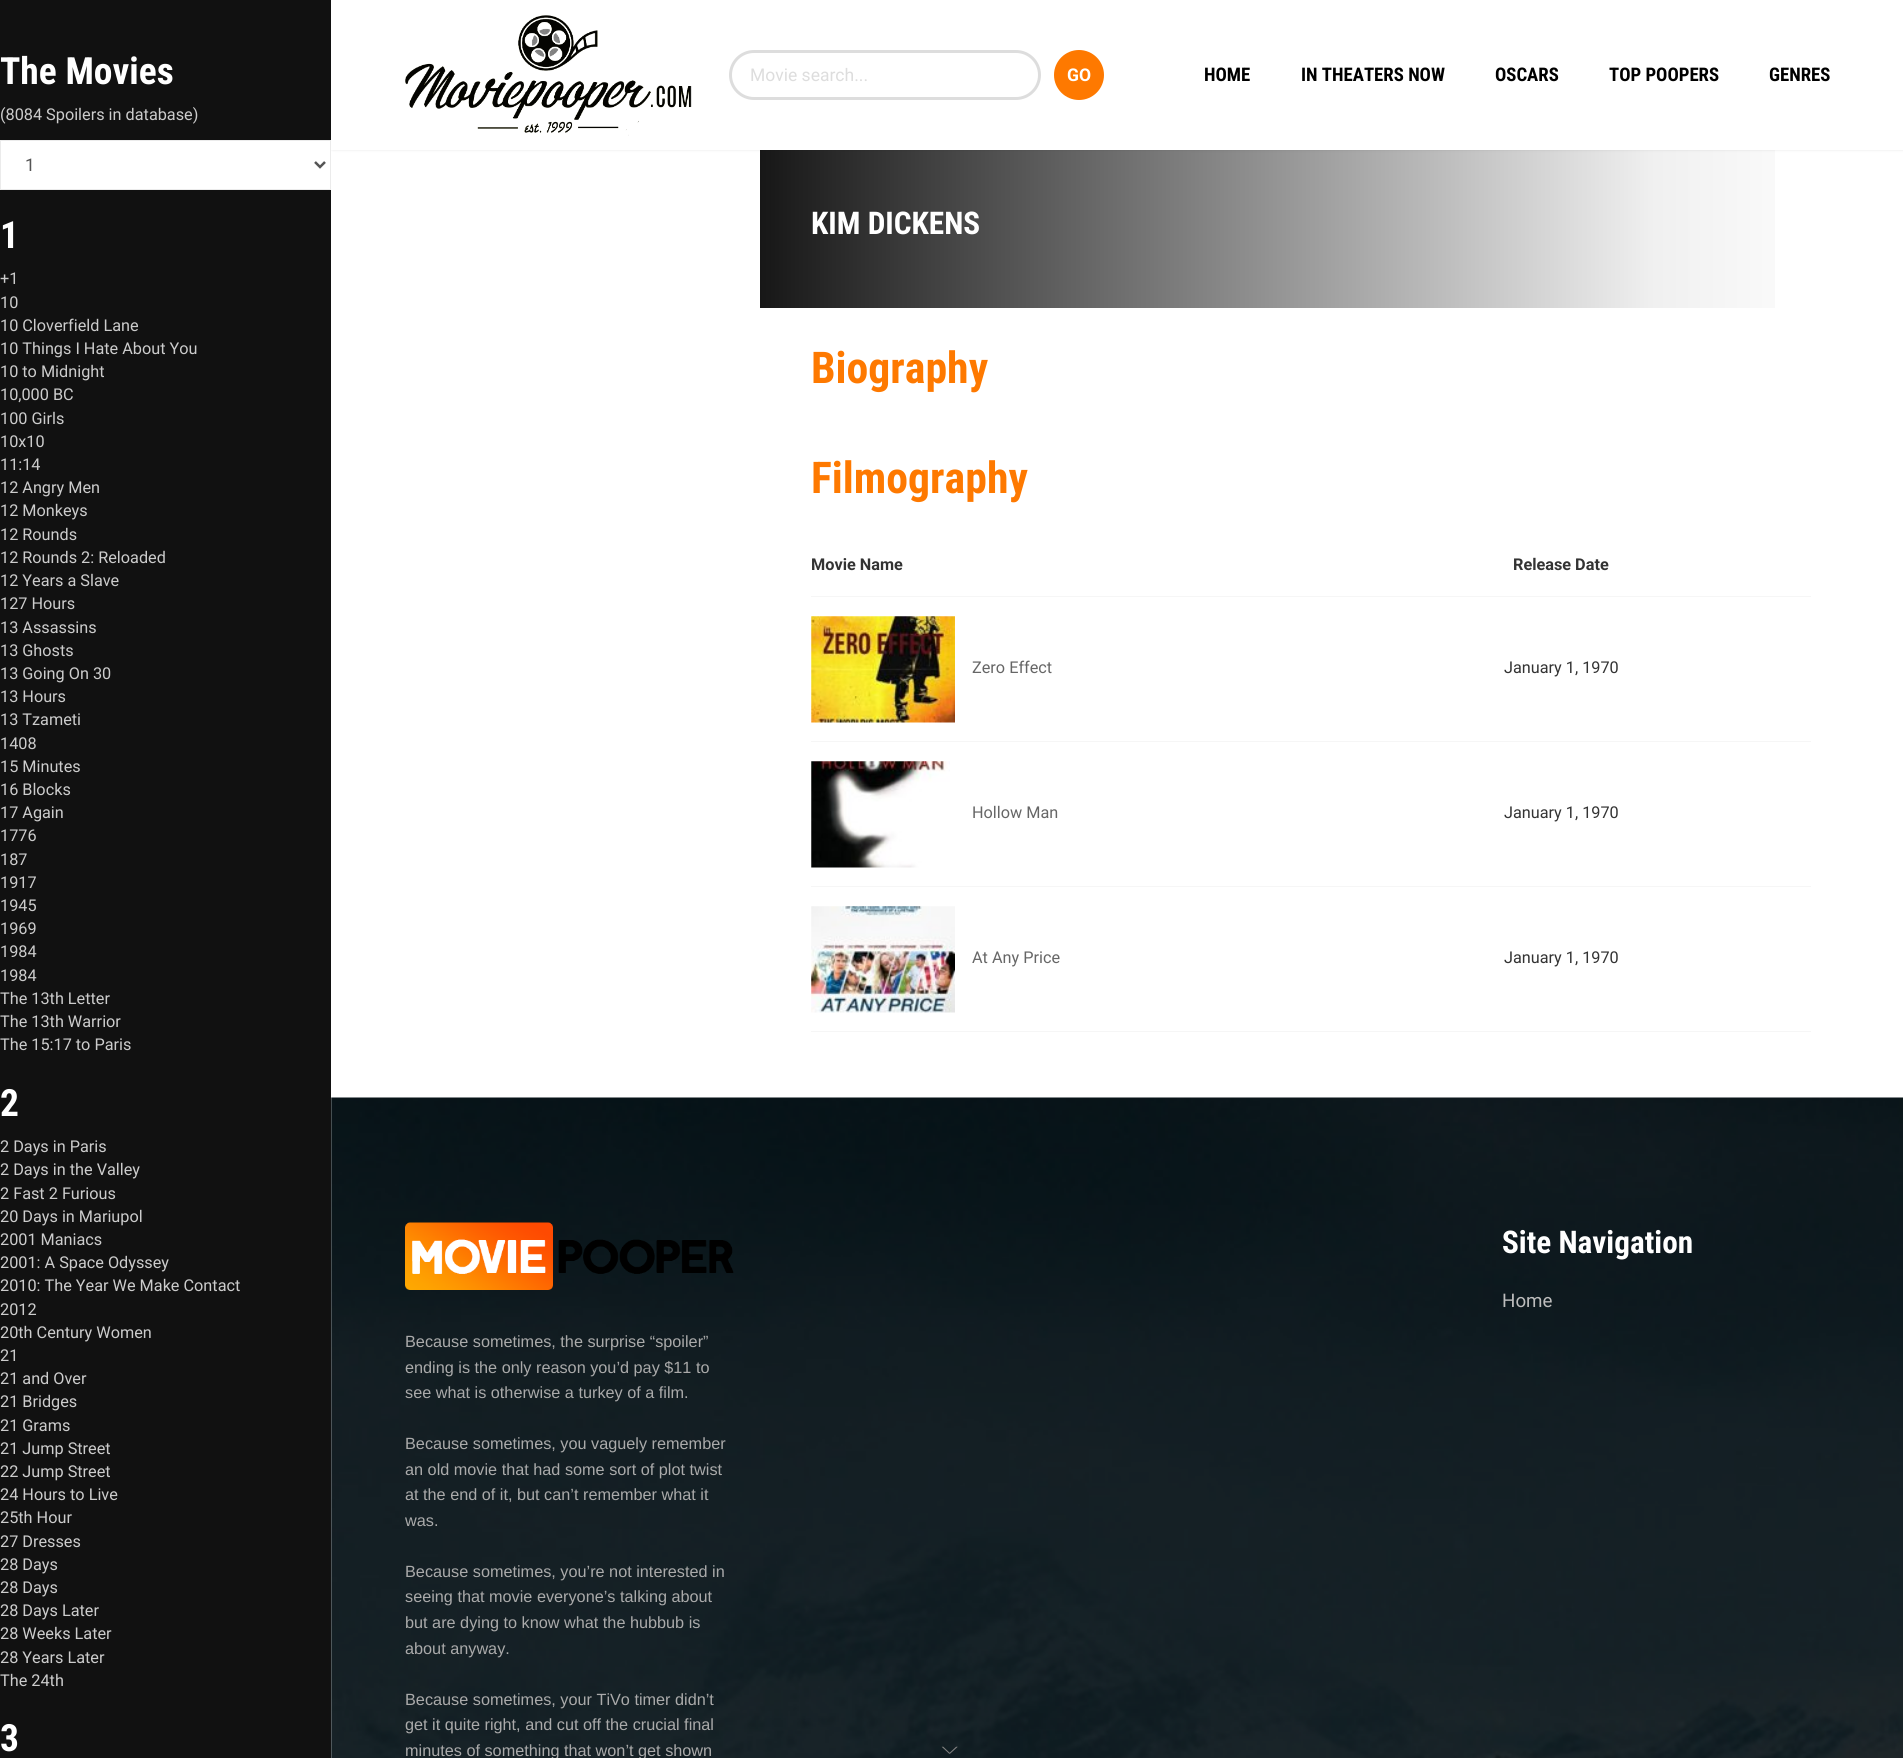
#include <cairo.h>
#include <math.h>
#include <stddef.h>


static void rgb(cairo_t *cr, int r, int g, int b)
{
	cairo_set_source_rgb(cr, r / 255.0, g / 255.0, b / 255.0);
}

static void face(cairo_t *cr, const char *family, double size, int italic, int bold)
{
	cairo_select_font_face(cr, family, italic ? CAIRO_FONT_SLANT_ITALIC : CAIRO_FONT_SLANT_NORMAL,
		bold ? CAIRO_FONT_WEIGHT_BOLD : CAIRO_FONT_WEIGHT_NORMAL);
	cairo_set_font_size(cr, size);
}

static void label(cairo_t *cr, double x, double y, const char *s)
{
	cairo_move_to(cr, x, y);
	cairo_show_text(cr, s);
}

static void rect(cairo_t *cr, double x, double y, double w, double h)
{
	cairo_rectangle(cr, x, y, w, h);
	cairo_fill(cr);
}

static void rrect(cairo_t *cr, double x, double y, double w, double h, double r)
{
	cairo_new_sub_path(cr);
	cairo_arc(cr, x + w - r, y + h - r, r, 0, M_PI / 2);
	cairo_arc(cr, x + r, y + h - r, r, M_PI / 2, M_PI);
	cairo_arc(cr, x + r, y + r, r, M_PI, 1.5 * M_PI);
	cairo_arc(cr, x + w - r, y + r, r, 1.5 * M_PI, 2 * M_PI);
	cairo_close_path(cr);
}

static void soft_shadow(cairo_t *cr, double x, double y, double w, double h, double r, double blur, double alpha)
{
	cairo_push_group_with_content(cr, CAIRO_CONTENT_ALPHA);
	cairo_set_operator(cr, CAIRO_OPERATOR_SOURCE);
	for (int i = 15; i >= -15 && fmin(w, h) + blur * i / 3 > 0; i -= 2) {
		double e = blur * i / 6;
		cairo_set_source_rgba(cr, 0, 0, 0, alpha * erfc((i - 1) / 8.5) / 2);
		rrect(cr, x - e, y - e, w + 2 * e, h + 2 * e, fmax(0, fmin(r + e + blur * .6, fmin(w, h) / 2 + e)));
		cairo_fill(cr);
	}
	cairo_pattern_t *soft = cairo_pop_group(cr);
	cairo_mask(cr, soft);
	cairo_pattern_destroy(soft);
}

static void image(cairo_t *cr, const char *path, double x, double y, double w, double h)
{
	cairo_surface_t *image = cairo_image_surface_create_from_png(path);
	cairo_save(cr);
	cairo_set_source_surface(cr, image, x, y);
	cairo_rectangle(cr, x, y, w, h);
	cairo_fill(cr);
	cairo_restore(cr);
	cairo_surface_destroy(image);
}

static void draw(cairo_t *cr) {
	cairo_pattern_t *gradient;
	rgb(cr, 255, 255, 255);
	cairo_paint(cr);
	cairo_save(cr);
	cairo_set_fill_rule(cr, CAIRO_FILL_RULE_EVEN_ODD);
	cairo_new_path(cr);
	cairo_move_to(cr, 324, 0);
	cairo_line_to(cr, 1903, 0);
	cairo_line_to(cr, 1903, 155);
	cairo_line_to(cr, 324, 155);
	cairo_close_path(cr);
	cairo_move_to(cr, 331, 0);
	cairo_line_to(cr, 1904, 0);
	cairo_line_to(cr, 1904, 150);
	cairo_line_to(cr, 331, 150);
	cairo_close_path(cr);
	cairo_clip(cr);
	rgb(cr, 0, 0, 0);
	soft_shadow(cr, 333, -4, 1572, 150, 0, 2.5, 1);
	cairo_restore(cr);
	rgb(cr, 17, 17, 17);
	rect(cr, 0, 0, 331, 1758);
	face(cr, "Roboto Condensed", 37.5, 0, 1);
	rgb(cr, 255, 255, 255);
	label(cr, 0, 84, "The Movies");
	face(cr, "Roboto", 16.25, 0, 0);
	rgb(cr, 204, 204, 204);
	label(cr, 0, 120, "(8084 Spoilers in database)");
	rgb(cr, 255, 255, 255);
	cairo_rectangle(cr, 0.5, 140.5, 330, 49);
	cairo_fill_preserve(cr);
	rgb(cr, 235, 235, 235);
	cairo_set_line_width(cr, 1);
	cairo_stroke(cr);
	cairo_new_path(cr);
	cairo_move_to(cr, 315, 162);
	cairo_line_to(cr, 320, 167);
	cairo_line_to(cr, 325, 162);
	rgb(cr, 85, 85, 85);
	cairo_set_line_width(cr, 2.5);
	cairo_stroke(cr);
	face(cr, "Roboto", 17.5, 0, 0);
	label(cr, 25, 171, "1");
	face(cr, "Roboto Condensed", 37.5, 0, 1);
	rgb(cr, 255, 255, 255);
	label(cr, 0, 248, "1");
	face(cr, "Roboto", 16.25, 0, 0);
	rgb(cr, 204, 204, 204);
	label(cr, 0, 284, "+1");
	label(cr, 0, 308, "10");
	label(cr, 0, 331, "10 Cloverfield Lane");
	label(cr, 0, 354, "10 Things I Hate About You");
	label(cr, 0, 377, "10 to Midnight");
	label(cr, 0, 400, "10,000 BC");
	label(cr, 0, 424, "100 Girls");
	label(cr, 0, 447, "10x10");
	label(cr, 0, 470, "11:14");
	label(cr, 0, 493, "12 Angry Men");
	label(cr, 0, 516, "12 Monkeys");
	label(cr, 0, 540, "12 Rounds");
	label(cr, 0, 563, "12 Rounds 2: Reloaded");
	label(cr, 0, 586, "12 Years a Slave");
	label(cr, 0, 609, "127 Hours");
	label(cr, 0, 633, "13 Assassins");
	label(cr, 0, 656, "13 Ghosts");
	label(cr, 0, 679, "13 Going On 30");
	label(cr, 0, 702, "13 Hours");
	label(cr, 0, 725, "13 Tzameti");
	label(cr, 0, 749, "1408");
	label(cr, 0, 772, "15 Minutes");
	label(cr, 0, 795, "16 Blocks");
	label(cr, 0, 818, "17 Again");
	label(cr, 0, 841, "1776");
	label(cr, 0, 865, "187");
	label(cr, 0, 888, "1917");
	label(cr, 0, 911, "1945");
	label(cr, 0, 934, "1969");
	label(cr, 0, 957, "1984");
	label(cr, 0, 981, "1984");
	label(cr, 0, 1004, "The 13th Letter");
	label(cr, 0, 1027, "The 13th Warrior");
	label(cr, 0, 1050, "The 15:17 to Paris");
	face(cr, "Roboto Condensed", 37.5, 0, 1);
	rgb(cr, 255, 255, 255);
	label(cr, 0, 1116, "2");
	face(cr, "Roboto", 16.25, 0, 0);
	rgb(cr, 204, 204, 204);
	label(cr, 0, 1152, "2 Days in Paris");
	label(cr, 0, 1175, "2 Days in the Valley");
	label(cr, 0, 1199, "2 Fast 2 Furious");
	label(cr, 0, 1222, "20 Days in Mariupol");
	label(cr, 0, 1245, "2001 Maniacs");
	label(cr, 0, 1268, "2001: A Space Odyssey");
	label(cr, 0, 1291, "2010: The Year We Make Contact");
	label(cr, 0, 1315, "2012");
	label(cr, 0, 1338, "20th Century Women");
	label(cr, 0, 1361, "21");
	label(cr, 0, 1384, "21 and Over");
	label(cr, 0, 1407, "21 Bridges");
	label(cr, 0, 1431, "21 Grams");
	label(cr, 0, 1454, "21 Jump Street");
	label(cr, 0, 1477, "22 Jump Street");
	label(cr, 0, 1500, "24 Hours to Live");
	label(cr, 0, 1523, "25th Hour");
	label(cr, 0, 1547, "27 Dresses");
	label(cr, 0, 1570, "28 Days");
	label(cr, 0, 1593, "28 Days");
	label(cr, 0, 1616, "28 Days Later");
	label(cr, 0, 1639, "28 Weeks Later");
	label(cr, 0, 1663, "28 Years Later");
	label(cr, 0, 1686, "The 24th");
	face(cr, "Roboto Condensed", 37.5, 0, 1);
	rgb(cr, 255, 255, 255);
	label(cr, 0, 1751, "3");
	image(cr, "image0.png", 405, 15, 287, 121);
	rrect(cr, 730.5, 51.5, 309, 47, 23.5);
	rgb(cr, 221, 221, 221);
	cairo_set_line_width(cr, 3);
	cairo_stroke(cr);
	face(cr, "Roboto", 17.5, 0, 0);
	label(cr, 750, 81, "Movie search...");
	rgb(cr, 254, 121, 0);
	cairo_new_path(cr);
	cairo_arc(cr, 1079, 75, 25, 0, 2 * M_PI);
	cairo_fill(cr);
	face(cr, "Roboto", 17.5, 0, 1);
	rgb(cr, 255, 255, 255);
	label(cr, 1067, 81, "GO");
	face(cr, "Roboto Condensed", 18.75, 0, 1);
	rgb(cr, 0, 0, 0);
	label(cr, 1204, 81, "HOME");
	label(cr, 1301, 81, "IN THEATERS NOW");
	label(cr, 1495, 81, "OSCARS");
	label(cr, 1609, 81, "TOP POOPERS");
	label(cr, 1769, 81, "GENRES");
	gradient = cairo_pattern_create_linear(760, 229, 1811, 229);
	cairo_pattern_add_color_stop_rgba(gradient, 0, 0, 0, 0, 0.91);
	cairo_pattern_add_color_stop_rgba(gradient, 0.85, 0, 0, 0, 0.06);
	cairo_pattern_add_color_stop_rgba(gradient, 1, 0, 0, 0, 0.01);
	cairo_set_source(cr, gradient);
	cairo_pattern_destroy(gradient);
	rect(cr, 760, 150, 1015, 158);
	face(cr, "Roboto Condensed", 31.25, 0, 1);
	rgb(cr, 255, 255, 255);
	label(cr, 811, 234, "KIM DICKENS");
	face(cr, "Roboto Condensed", 43.75, 0, 1);
	rgb(cr, 254, 121, 0);
	label(cr, 811, 383, "Biography");
	label(cr, 811, 493, "Filmography");
	rgb(cr, 246, 246, 246);
	rect(cr, 811, 596, 1000, 1);
	face(cr, "Roboto", 16.25, 0, 1);
	rgb(cr, 51, 51, 51);
	label(cr, 811, 570, "Movie Name");
	label(cr, 1513, 570, "Release Date");
	rgb(cr, 246, 246, 246);
	rect(cr, 811, 741, 1000, 1);
	image(cr, "image1.png", 811, 616, 144, 107);
	face(cr, "Roboto", 16.25, 0, 0);
	rgb(cr, 102, 102, 102);
	label(cr, 972, 673, "Zero Effect");
	rgb(cr, 51, 51, 51);
	label(cr, 1504, 673, "January 1, 1970");
	rgb(cr, 246, 246, 246);
	rect(cr, 811, 886, 1000, 1);
	image(cr, "image2.png", 811, 761, 139, 107);
	rgb(cr, 102, 102, 102);
	label(cr, 972, 818, "Hollow Man");
	rgb(cr, 51, 51, 51);
	label(cr, 1504, 818, "January 1, 1970");
	rgb(cr, 246, 246, 246);
	rect(cr, 811, 1031, 1000, 1);
	image(cr, "image3.png", 811, 906, 144, 107);
	rgb(cr, 102, 102, 102);
	label(cr, 972, 963, "At Any Price");
	rgb(cr, 51, 51, 51);
	label(cr, 1504, 963, "January 1, 1970");
	image(cr, "image4.png", 331, 1097, 1572, 661);
	face(cr, "Roboto Condensed", 31.25, 0, 1);
	rgb(cr, 255, 255, 255);
	label(cr, 1502, 1253, "Site Navigation");
	face(cr, "Roboto", 18.75, 0, 0);
	rgb(cr, 189, 189, 189);
	label(cr, 1502, 1307, "Home");
	image(cr, "image5.png", 405, 1222, 329, 68);
	face(cr, "Liberation Sans", 16.25, 0, 0);
	rgb(cr, 170, 170, 170);
	label(cr, 405, 1347, "Because sometimes, the surprise “spoiler”");
	label(cr, 405, 1373, "ending is the only reason you’d pay $11 to");
	label(cr, 405, 1398, "see what is otherwise a turkey of a film.");
	label(cr, 405, 1449, "Because sometimes, you vaguely remember");
	label(cr, 405, 1475, "an old movie that had some sort of plot twist");
	label(cr, 405, 1500, "at the end of it, but can’t remember what it");
	label(cr, 405, 1526, "was.");
	label(cr, 405, 1577, "Because sometimes, you’re not interested in");
	label(cr, 405, 1602, "seeing that movie everyone’s talking about");
	label(cr, 405, 1628, "but are dying to know what the hubbub is");
	label(cr, 405, 1654, "about anyway.");
	label(cr, 405, 1705, "Because sometimes, your TiVo timer didn’t");
	label(cr, 405, 1730, "get it quite right, and cut off the crucial final");
	label(cr, 405, 1756, "minutes of something that won’t get shown");
	image(cr, "image6.png", 941, 1746, 17, 8);
}

int main(void) {
	cairo_surface_t *surface = cairo_image_surface_create(CAIRO_FORMAT_RGB24, 1903, 1758);
	cairo_t *cr = cairo_create(surface);
	cairo_font_options_t *options = cairo_font_options_create();
	cairo_font_options_set_hint_metrics(options, CAIRO_HINT_METRICS_OFF);
	cairo_font_options_set_hint_style(options, CAIRO_HINT_STYLE_NONE);
	cairo_set_font_options(cr, options);
	cairo_set_miter_limit(cr, 4);
	draw(cr);
	cairo_surface_write_to_png(surface, "render.png");
	cairo_font_options_destroy(options);
	cairo_destroy(cr);
	cairo_surface_destroy(surface);
	return 0;
}
